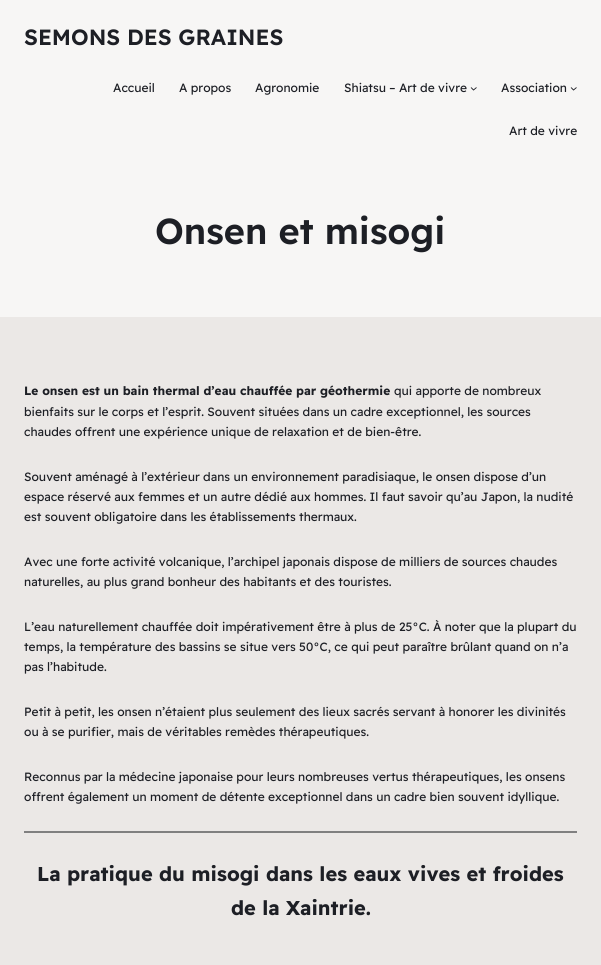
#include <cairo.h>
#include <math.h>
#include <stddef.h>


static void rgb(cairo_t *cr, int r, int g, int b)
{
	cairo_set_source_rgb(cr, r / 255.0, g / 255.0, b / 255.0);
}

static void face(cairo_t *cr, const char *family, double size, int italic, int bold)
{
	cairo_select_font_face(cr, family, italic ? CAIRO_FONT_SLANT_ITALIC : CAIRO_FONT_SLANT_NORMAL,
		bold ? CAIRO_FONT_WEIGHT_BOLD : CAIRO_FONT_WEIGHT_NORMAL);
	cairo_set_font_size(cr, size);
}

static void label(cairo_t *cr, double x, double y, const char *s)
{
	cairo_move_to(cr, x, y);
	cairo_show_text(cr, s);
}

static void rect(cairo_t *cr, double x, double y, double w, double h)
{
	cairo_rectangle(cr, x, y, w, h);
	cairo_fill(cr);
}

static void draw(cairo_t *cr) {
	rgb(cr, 235, 232, 230);
	cairo_paint(cr);
	rgb(cr, 247, 246, 245);
	rect(cr, 0, 0, 601, 317);
	face(cr, "Readex Pro SemiBold", 22, 0, 0);
	rgb(cr, 29, 31, 37);
	label(cr, 24, 45, "SEMONS DES GRAINES");
	face(cr, "Readex Pro", 12, 0, 0);
	label(cr, 113, 92, "Accueil");
	label(cr, 179, 92, "A propos");
	label(cr, 255, 92, "Agronomie");
	label(cr, 344, 92, "Shiatsu – Art de vivre");
	cairo_new_path(cr);
	cairo_move_to(cr, 471, 87.5);
	cairo_line_to(cr, 473.5, 90);
	cairo_line_to(cr, 476.5, 87.5);
	cairo_set_line_width(cr, 0.9);
	cairo_stroke(cr);
	label(cr, 501, 92, "Association");
	cairo_new_path(cr);
	cairo_move_to(cr, 571, 87.5);
	cairo_line_to(cr, 573.5, 90);
	cairo_line_to(cr, 576.5, 87.5);
	cairo_stroke(cr);
	label(cr, 509, 135, "Art de vivre");
	face(cr, "Readex Pro SemiBold", 36, 0, 0);
	label(cr, 155, 244, "Onsen et misogi");
	face(cr, "Readex Pro", 12, 0, 1);
	label(cr, 24, 395, "Le onsen est un bain thermal d’eau chauffée par géothermie");
	face(cr, "Readex Pro", 12, 0, 0);
	label(cr, 394, 395, "qui apporte de nombreux");
	label(cr, 24, 416, "bienfaits sur le corps et l’esprit. Souvent situées dans un cadre exceptionnel, les sources");
	label(cr, 24, 436, "chaudes offrent une expérience unique de relaxation et de bien-être.");
	label(cr, 24, 481, "Souvent aménagé à l’extérieur dans un environnement paradisiaque, le onsen dispose d’un");
	label(cr, 24, 501, "espace réservé aux femmes et un autre dédié aux hommes. Il faut savoir qu’au Japon, la nudité");
	label(cr, 24, 521, "est souvent obligatoire dans les établissements thermaux.");
	label(cr, 24, 566, "Avec une forte activité volcanique, l’archipel japonais dispose de milliers de sources chaudes");
	label(cr, 24, 586, "naturelles, au plus grand bonheur des habitants et des touristes.");
	label(cr, 24, 631, "L’eau naturellement chauffée doit impérativement être à plus de 25°C. À noter que la plupart du");
	label(cr, 24, 651, "temps, la température des bassins se situe vers 50°C, ce qui peut paraître brûlant quand on n’a");
	label(cr, 24, 671, "pas l’habitude.");
	label(cr, 24, 716, "Petit à petit, les onsen n’étaient plus seulement des lieux sacrés servant à honorer les divinités");
	label(cr, 24, 736, "ou à se purifier, mais de véritables remèdes thérapeutiques.");
	label(cr, 24, 781, "Reconnus par la médecine japonaise pour leurs nombreuses vertus thérapeutiques, les onsens");
	label(cr, 24, 801, "offrent également un moment de détente exceptionnel dans un cadre bien souvent idyllique.");
	rgb(cr, 128, 128, 128);
	rect(cr, 24, 831, 553, 2);
	face(cr, "Readex Pro", 20, 0, 1);
	rgb(cr, 29, 31, 37);
	label(cr, 37, 881, "La pratique du misogi dans les eaux vives et froides");
	label(cr, 231, 915, "de la Xaintrie.");
}

int main(void) {
	cairo_surface_t *surface = cairo_image_surface_create(CAIRO_FORMAT_RGB24, 601, 965);
	cairo_t *cr = cairo_create(surface);
	cairo_font_options_t *options = cairo_font_options_create();
	cairo_font_options_set_hint_metrics(options, CAIRO_HINT_METRICS_OFF);
	cairo_font_options_set_hint_style(options, CAIRO_HINT_STYLE_NONE);
	cairo_set_font_options(cr, options);
	cairo_set_miter_limit(cr, 4);
	draw(cr);
	cairo_surface_write_to_png(surface, "render.png");
	cairo_font_options_destroy(options);
	cairo_destroy(cr);
	cairo_surface_destroy(surface);
	return 0;
}
